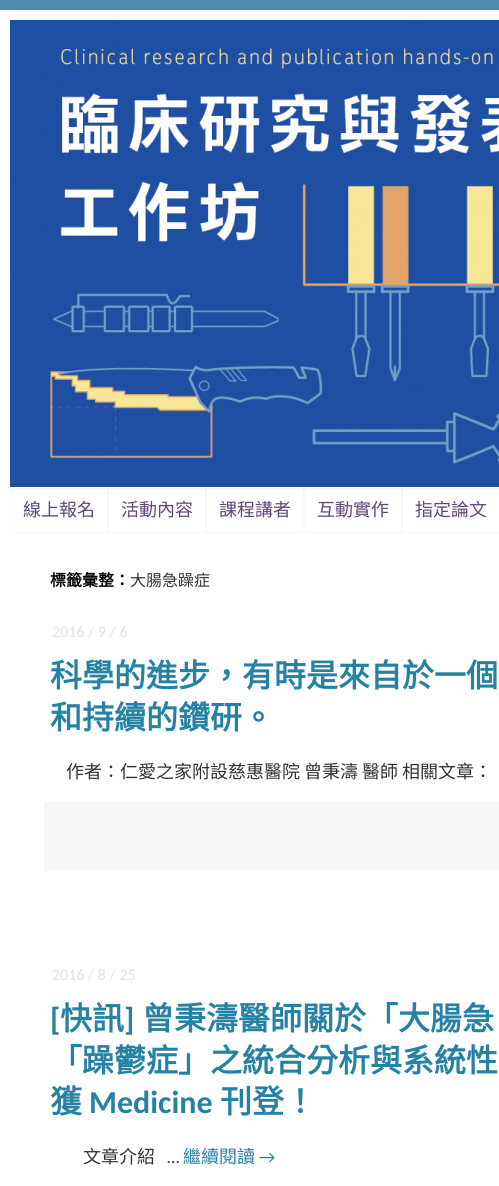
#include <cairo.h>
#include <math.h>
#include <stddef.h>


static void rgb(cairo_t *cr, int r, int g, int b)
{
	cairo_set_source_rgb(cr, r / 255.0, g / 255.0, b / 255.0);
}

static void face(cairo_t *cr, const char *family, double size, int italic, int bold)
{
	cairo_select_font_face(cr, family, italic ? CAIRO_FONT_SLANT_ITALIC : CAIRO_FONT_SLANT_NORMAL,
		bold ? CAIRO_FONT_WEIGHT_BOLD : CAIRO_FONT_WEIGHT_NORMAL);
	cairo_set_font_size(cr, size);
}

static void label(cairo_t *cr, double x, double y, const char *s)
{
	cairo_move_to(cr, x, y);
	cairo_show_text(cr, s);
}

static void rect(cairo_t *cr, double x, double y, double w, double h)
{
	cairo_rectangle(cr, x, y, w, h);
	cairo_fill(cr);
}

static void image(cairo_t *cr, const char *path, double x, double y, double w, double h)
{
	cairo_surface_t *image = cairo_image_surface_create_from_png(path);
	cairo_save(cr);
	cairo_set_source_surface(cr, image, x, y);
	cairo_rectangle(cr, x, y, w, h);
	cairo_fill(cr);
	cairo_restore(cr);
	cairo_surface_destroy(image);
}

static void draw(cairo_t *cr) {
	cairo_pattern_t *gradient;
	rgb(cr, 255, 255, 255);
	cairo_paint(cr);
	gradient = cairo_pattern_create_linear(249, 0, 250, 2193);
	cairo_pattern_add_color_stop_rgba(gradient, 0, 0.314, 0.541, 0.69, 1);
	cairo_pattern_add_color_stop_rgba(gradient, 0.33, 0.69, 0.816, 0.847, 1);
	cairo_set_source(cr, gradient);
	cairo_pattern_destroy(gradient);
	rect(cr, 0, 0, 499, 10);
	image(cr, "image0.png", 10, 20, 489, 467);
	cairo_rectangle(cr, 10.5, 488.5, 97, 44);
	rgb(cr, 247, 247, 247);
	cairo_set_line_width(cr, 1);
	cairo_stroke(cr);
	face(cr, "Noto Sans CJK TC", 18, 0, 0);
	rgb(cr, 96, 72, 119);
	label(cr, 23, 516, "線上報名");
	cairo_rectangle(cr, 108.5, 488.5, 97, 44);
	rgb(cr, 247, 247, 247);
	cairo_stroke(cr);
	rgb(cr, 96, 72, 119);
	label(cr, 121, 516, "活動內容");
	cairo_rectangle(cr, 206.5, 488.5, 97, 44);
	rgb(cr, 247, 247, 247);
	cairo_stroke(cr);
	rgb(cr, 96, 72, 119);
	label(cr, 219, 516, "課程講者");
	cairo_rectangle(cr, 304.5, 488.5, 97, 44);
	rgb(cr, 247, 247, 247);
	cairo_stroke(cr);
	rgb(cr, 96, 72, 119);
	label(cr, 317, 516, "互動實作");
	cairo_rectangle(cr, 402.5, 488.5, 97, 44);
	rgb(cr, 247, 247, 247);
	cairo_stroke(cr);
	rgb(cr, 96, 72, 119);
	label(cr, 415, 516, "指定論文");
	face(cr, "Noto Sans CJK TC", 16, 0, 1);
	rgb(cr, 0, 0, 0);
	label(cr, 50, 586, "標籤彙整：");
	face(cr, "Noto Sans CJK TC", 16, 0, 0);
	rgb(cr, 51, 51, 51);
	label(cr, 130, 586, "大腸急躁症");
	face(cr, "Carlito", 16, 0, 0);
	rgb(cr, 226, 226, 226);
	label(cr, 52, 637, "2016 / 9 / 6");
	face(cr, "Noto Sans CJK TC", 32, 0, 1);
	rgb(cr, 38, 130, 164);
	label(cr, 50, 687, "科學的進步，有時是來自於一個");
	label(cr, 50, 729, "和持續的鑽研。");
	face(cr, "Noto Sans CJK TC", 18, 0, 0);
	rgb(cr, 51, 51, 51);
	label(cr, 66, 778, "作者：仁愛之家附設慈惠醫院 曾秉濤 醫師 相關文章：");
	rgb(cr, 247, 247, 247);
	rect(cr, 44, 802, 455, 69);
	face(cr, "Carlito", 16, 0, 0);
	rgb(cr, 226, 226, 226);
	label(cr, 52, 980, "2016 / 8 / 25");
	face(cr, "Carlito", 32, 0, 1);
	rgb(cr, 38, 130, 164);
	label(cr, 50, 1030, "[");
	face(cr, "Noto Sans CJK TC", 32, 0, 1);
	label(cr, 60, 1030, "快訊");
	face(cr, "Carlito", 32, 0, 1);
	label(cr, 124, 1030, "]");
	face(cr, "Noto Sans CJK TC", 32, 0, 1);
	label(cr, 142, 1030, "曾秉濤醫師關於「大腸急");
	label(cr, 50, 1072, "「躁鬱症」之統合分析與系統性");
	label(cr, 50, 1113, "獲");
	face(cr, "Carlito", 32, 0, 1);
	label(cr, 89, 1113, "Medicine");
	face(cr, "Noto Sans CJK TC", 32, 0, 1);
	label(cr, 220, 1113, "刊登！");
	face(cr, "Noto Sans CJK TC", 18, 0, 0);
	rgb(cr, 51, 51, 51);
	label(cr, 83, 1163, "文章介紹");
	face(cr, "Carlito", 18, 0, 0);
	label(cr, 167, 1163, "…");
	face(cr, "Noto Sans CJK TC", 18, 0, 0);
	rgb(cr, 38, 130, 164);
	label(cr, 183, 1163, "繼續閱讀");
	face(cr, "Carlito", 18, 0, 0);
	label(cr, 259, 1163, "→");
}

int main(void) {
	cairo_surface_t *surface = cairo_image_surface_create(CAIRO_FORMAT_RGB24, 499, 1186);
	cairo_t *cr = cairo_create(surface);
	cairo_font_options_t *options = cairo_font_options_create();
	cairo_font_options_set_hint_metrics(options, CAIRO_HINT_METRICS_OFF);
	cairo_font_options_set_hint_style(options, CAIRO_HINT_STYLE_NONE);
	cairo_set_font_options(cr, options);
	cairo_set_miter_limit(cr, 4);
	draw(cr);
	cairo_surface_write_to_png(surface, "render.png");
	cairo_font_options_destroy(options);
	cairo_destroy(cr);
	cairo_surface_destroy(surface);
	return 0;
}
